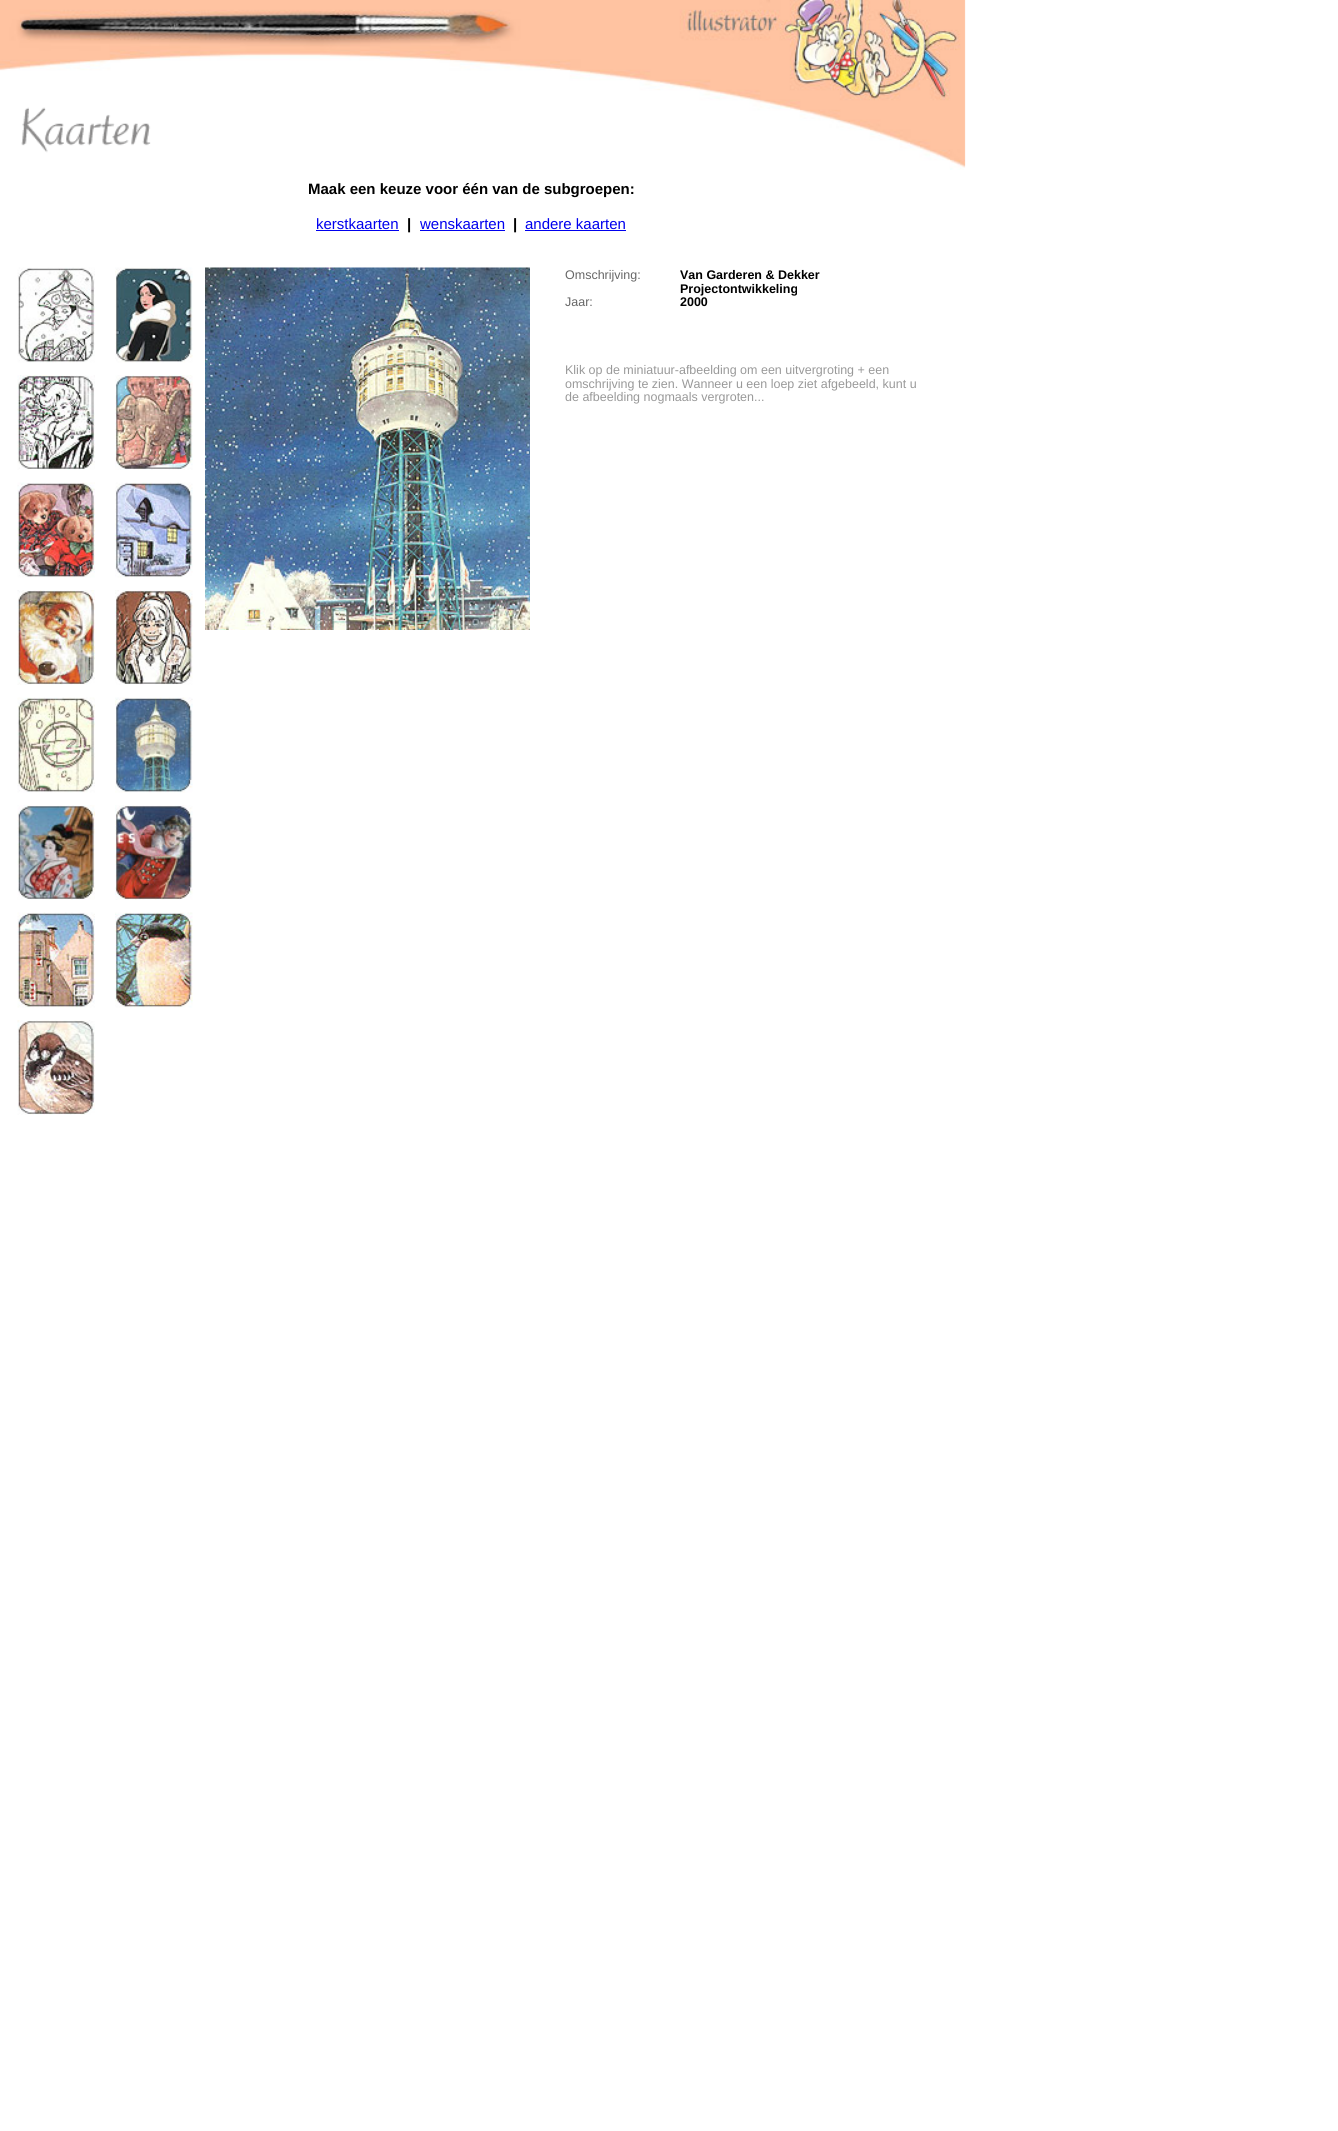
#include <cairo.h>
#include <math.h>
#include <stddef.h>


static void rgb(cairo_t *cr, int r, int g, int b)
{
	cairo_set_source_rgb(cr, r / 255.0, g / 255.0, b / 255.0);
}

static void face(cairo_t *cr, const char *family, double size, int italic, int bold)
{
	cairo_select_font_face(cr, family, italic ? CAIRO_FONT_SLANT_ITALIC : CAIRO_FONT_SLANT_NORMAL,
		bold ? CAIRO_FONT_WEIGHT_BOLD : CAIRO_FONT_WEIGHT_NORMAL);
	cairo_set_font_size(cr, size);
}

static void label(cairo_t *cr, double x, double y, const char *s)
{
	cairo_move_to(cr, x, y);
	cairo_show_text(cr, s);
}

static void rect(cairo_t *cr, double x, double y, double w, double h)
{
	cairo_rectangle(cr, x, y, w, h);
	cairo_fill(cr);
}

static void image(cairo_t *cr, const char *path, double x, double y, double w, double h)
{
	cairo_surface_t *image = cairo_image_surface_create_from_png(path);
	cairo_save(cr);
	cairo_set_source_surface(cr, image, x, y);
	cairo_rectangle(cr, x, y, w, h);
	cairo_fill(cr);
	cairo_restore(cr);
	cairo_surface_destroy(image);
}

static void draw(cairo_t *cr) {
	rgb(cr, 255, 255, 255);
	cairo_paint(cr);
	image(cr, "image0.png", 0, 0, 966, 170);
	image(cr, "image1.png", 21, 107, 130, 46);
	face(cr, "Liberation Sans", 15, 0, 1);
	rgb(cr, 0, 0, 0);
	label(cr, 308, 194, "Maak een keuze voor één van de subgroepen:");
	face(cr, "Liberation Sans", 15, 0, 0);
	rgb(cr, 0, 0, 238);
	label(cr, 316, 229, "kerstkaarten");
	rect(cr, 316, 230, 83, 1);
	face(cr, "Liberation Sans", 15, 0, 1);
	rgb(cr, 0, 0, 0);
	label(cr, 407, 229, "|");
	face(cr, "Liberation Sans", 15, 0, 0);
	rgb(cr, 0, 0, 238);
	label(cr, 420, 229, "wenskaarten");
	rect(cr, 420, 230, 85, 1);
	face(cr, "Liberation Sans", 15, 0, 1);
	rgb(cr, 0, 0, 0);
	label(cr, 513, 229, "|");
	face(cr, "Liberation Sans", 15, 0, 0);
	rgb(cr, 0, 0, 238);
	label(cr, 525, 229, "andere kaarten");
	rect(cr, 525, 230, 101, 1);
	image(cr, "image2.png", 17, 267, 78, 96);
	image(cr, "image3.png", 115, 267, 78, 96);
	image(cr, "image4.png", 17, 375, 78, 95);
	image(cr, "image5.png", 115, 375, 78, 95);
	image(cr, "image6.png", 17, 482, 78, 96);
	image(cr, "image7.png", 115, 482, 78, 96);
	image(cr, "image8.png", 17, 590, 78, 95);
	image(cr, "image9.png", 115, 590, 78, 95);
	image(cr, "image10.png", 17, 697, 78, 96);
	image(cr, "image11.png", 115, 697, 78, 96);
	image(cr, "image12.png", 17, 805, 78, 95);
	image(cr, "image13.png", 115, 805, 78, 95);
	image(cr, "image14.png", 17, 912, 78, 96);
	image(cr, "image15.png", 115, 912, 78, 96);
	image(cr, "image16.png", 17, 1020, 78, 95);
	image(cr, "image17.png", 205, 267, 325, 363);
	face(cr, "Liberation Sans", 12.5, 0, 0);
	rgb(cr, 102, 102, 102);
	label(cr, 565, 279, "Omschrijving:");
	face(cr, "Liberation Sans", 12.5, 0, 1);
	rgb(cr, 0, 0, 0);
	label(cr, 680, 279, "Van Garderen & Dekker");
	label(cr, 680, 293, "Projectontwikkeling");
	face(cr, "Liberation Sans", 12.5, 0, 0);
	rgb(cr, 102, 102, 102);
	label(cr, 565, 306, "Jaar:");
	face(cr, "Liberation Sans", 12.5, 0, 1);
	rgb(cr, 0, 0, 0);
	label(cr, 680, 306, "2000");
	face(cr, "Liberation Sans", 12.5, 0, 0);
	rgb(cr, 153, 153, 153);
	label(cr, 565, 374, "Klik op de miniatuur-afbeelding om een uitvergroting + een");
	label(cr, 565, 388, "omschrijving te zien. Wanneer u een loep ziet afgebeeld, kunt u");
	label(cr, 565, 401, "de afbeelding nogmaals vergroten...");
}

int main(void) {
	cairo_surface_t *surface = cairo_image_surface_create(CAIRO_FORMAT_RGB24, 1338, 2131);
	cairo_t *cr = cairo_create(surface);
	cairo_font_options_t *options = cairo_font_options_create();
	cairo_font_options_set_hint_metrics(options, CAIRO_HINT_METRICS_OFF);
	cairo_font_options_set_hint_style(options, CAIRO_HINT_STYLE_NONE);
	cairo_set_font_options(cr, options);
	cairo_set_miter_limit(cr, 4);
	draw(cr);
	cairo_surface_write_to_png(surface, "render.png");
	cairo_font_options_destroy(options);
	cairo_destroy(cr);
	cairo_surface_destroy(surface);
	return 0;
}
